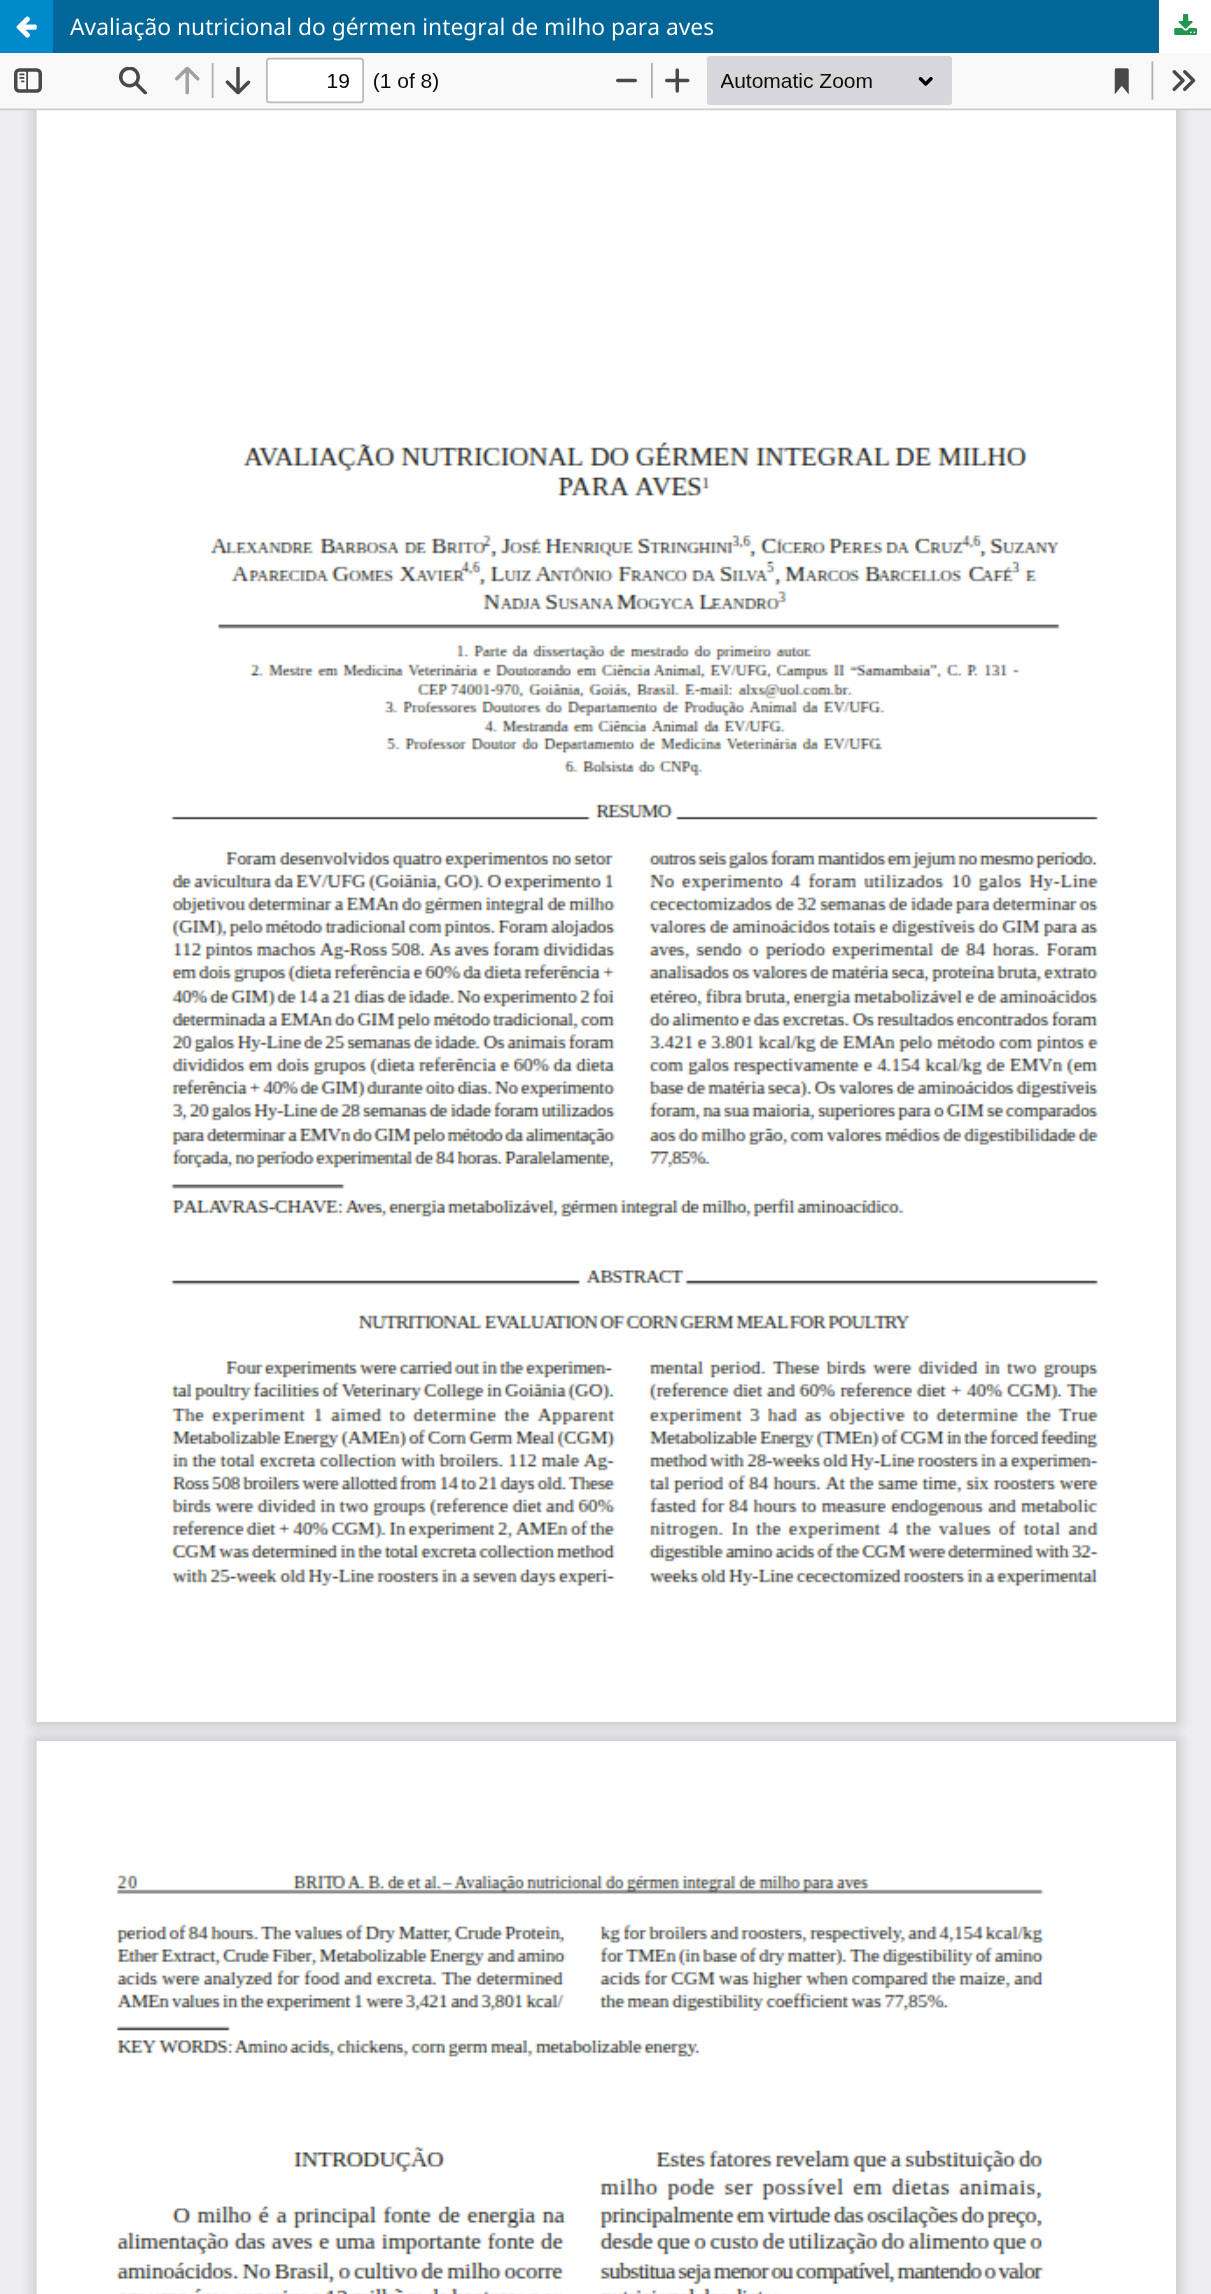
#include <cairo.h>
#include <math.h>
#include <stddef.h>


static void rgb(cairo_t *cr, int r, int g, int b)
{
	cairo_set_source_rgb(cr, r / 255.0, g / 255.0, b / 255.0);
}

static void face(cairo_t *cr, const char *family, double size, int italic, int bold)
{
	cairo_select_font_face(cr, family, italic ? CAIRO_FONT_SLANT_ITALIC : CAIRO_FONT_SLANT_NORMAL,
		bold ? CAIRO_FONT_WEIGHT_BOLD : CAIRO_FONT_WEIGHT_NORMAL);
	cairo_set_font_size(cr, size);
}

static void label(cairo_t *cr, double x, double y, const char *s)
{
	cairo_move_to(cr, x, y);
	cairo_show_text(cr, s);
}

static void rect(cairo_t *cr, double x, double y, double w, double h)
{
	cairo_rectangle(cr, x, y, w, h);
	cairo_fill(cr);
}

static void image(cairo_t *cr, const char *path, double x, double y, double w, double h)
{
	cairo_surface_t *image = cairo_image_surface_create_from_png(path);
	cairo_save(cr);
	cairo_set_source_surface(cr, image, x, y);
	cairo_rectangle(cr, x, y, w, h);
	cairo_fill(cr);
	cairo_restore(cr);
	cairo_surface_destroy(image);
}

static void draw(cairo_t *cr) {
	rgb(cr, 255, 255, 255);
	cairo_paint(cr);
	rgb(cr, 0, 103, 152);
	rect(cr, 53, 0, 1106, 53);
	rgb(cr, 0, 138, 203);
	rect(cr, 0, 0, 53, 53);
	image(cr, "image0.png", 16, 16, 21, 22);
	face(cr, "Noto Sans", 22.8, 0, 0);
	rgb(cr, 255, 255, 255);
	label(cr, 70, 35, "Avaliação nutricional do gérmen integral de milho para aves");
	image(cr, "image1.png", 1174, 14, 23, 21);
	image(cr, "image2.png", 0, 53, 1211, 2241);
}

int main(void) {
	cairo_surface_t *surface = cairo_image_surface_create(CAIRO_FORMAT_RGB24, 1211, 2294);
	cairo_t *cr = cairo_create(surface);
	cairo_font_options_t *options = cairo_font_options_create();
	cairo_font_options_set_hint_metrics(options, CAIRO_HINT_METRICS_OFF);
	cairo_font_options_set_hint_style(options, CAIRO_HINT_STYLE_NONE);
	cairo_set_font_options(cr, options);
	cairo_set_miter_limit(cr, 4);
	draw(cr);
	cairo_surface_write_to_png(surface, "render.png");
	cairo_font_options_destroy(options);
	cairo_destroy(cr);
	cairo_surface_destroy(surface);
	return 0;
}
